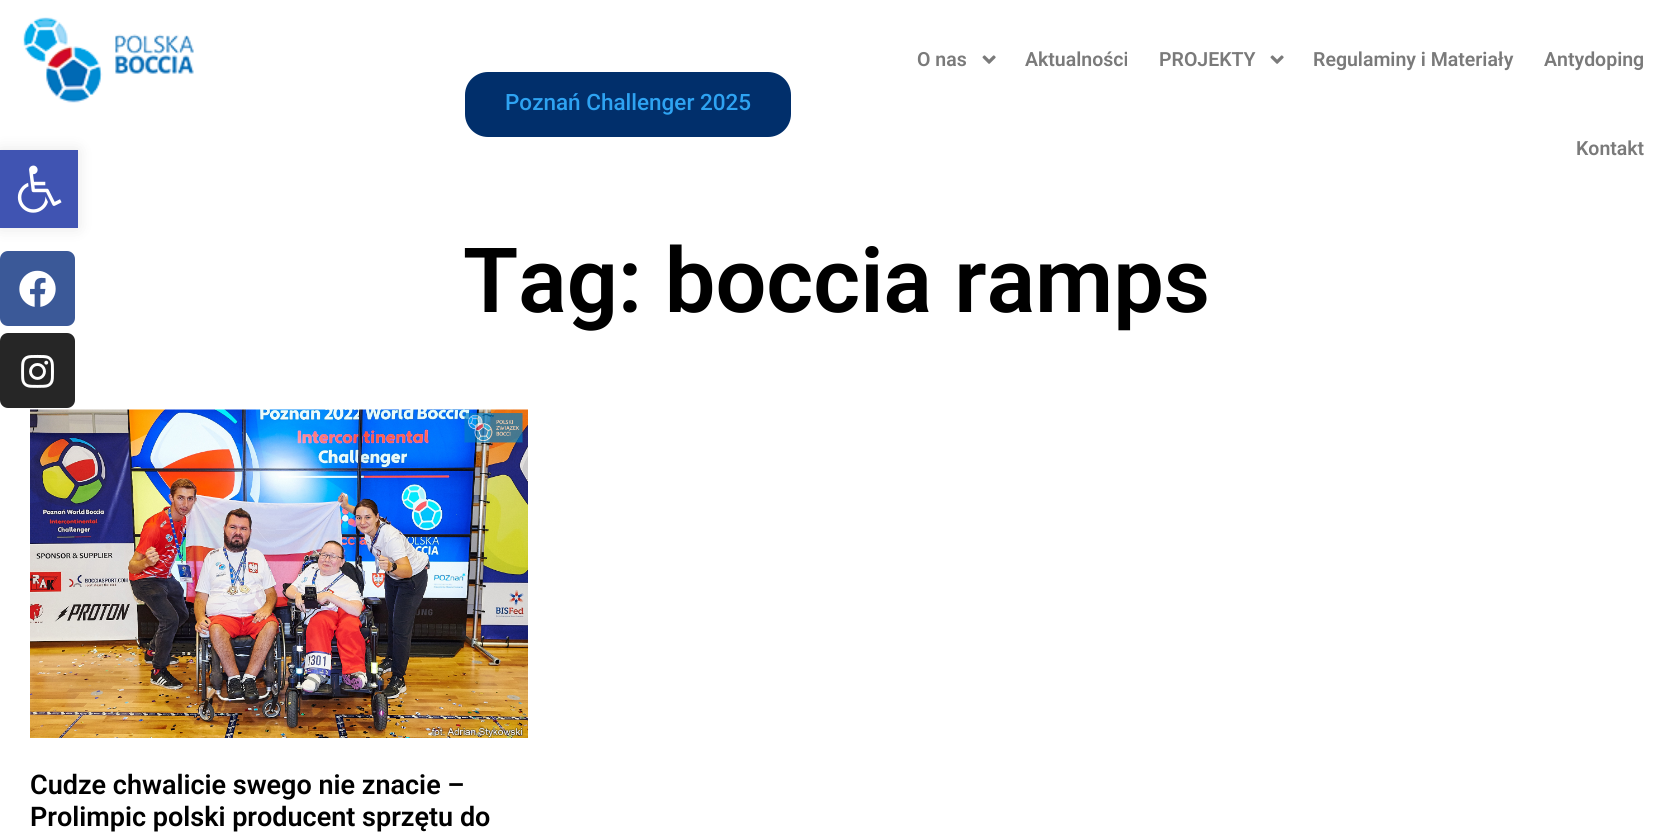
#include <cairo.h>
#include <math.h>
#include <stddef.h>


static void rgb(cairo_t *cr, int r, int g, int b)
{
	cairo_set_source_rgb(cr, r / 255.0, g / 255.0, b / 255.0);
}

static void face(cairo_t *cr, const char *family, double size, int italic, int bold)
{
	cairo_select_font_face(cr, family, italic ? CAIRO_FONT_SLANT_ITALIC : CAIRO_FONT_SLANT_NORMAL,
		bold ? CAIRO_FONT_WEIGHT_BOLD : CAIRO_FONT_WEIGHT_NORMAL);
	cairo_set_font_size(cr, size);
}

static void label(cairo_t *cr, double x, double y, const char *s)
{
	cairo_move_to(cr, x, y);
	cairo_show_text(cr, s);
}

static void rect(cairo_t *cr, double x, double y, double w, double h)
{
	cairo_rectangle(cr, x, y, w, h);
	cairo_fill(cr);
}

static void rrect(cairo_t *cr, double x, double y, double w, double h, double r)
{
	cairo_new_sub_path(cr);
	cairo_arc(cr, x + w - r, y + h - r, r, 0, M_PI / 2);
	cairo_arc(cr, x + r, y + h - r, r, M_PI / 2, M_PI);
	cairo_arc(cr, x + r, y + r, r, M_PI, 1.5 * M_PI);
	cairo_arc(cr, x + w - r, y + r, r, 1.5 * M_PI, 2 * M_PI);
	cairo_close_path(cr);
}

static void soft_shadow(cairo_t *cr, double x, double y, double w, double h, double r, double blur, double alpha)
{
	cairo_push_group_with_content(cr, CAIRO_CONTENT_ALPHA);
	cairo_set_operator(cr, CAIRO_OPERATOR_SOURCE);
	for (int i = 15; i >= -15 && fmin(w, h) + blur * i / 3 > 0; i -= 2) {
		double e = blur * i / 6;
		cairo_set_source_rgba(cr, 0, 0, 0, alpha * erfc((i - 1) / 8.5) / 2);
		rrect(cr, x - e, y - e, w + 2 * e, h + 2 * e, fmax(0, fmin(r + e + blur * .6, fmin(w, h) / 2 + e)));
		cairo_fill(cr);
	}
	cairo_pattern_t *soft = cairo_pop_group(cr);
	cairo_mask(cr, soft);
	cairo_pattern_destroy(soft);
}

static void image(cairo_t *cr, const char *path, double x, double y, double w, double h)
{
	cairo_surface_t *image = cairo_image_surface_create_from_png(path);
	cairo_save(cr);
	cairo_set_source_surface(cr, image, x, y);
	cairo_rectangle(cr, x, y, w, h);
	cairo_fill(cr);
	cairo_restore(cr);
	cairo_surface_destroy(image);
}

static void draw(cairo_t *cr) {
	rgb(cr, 255, 255, 255);
	cairo_paint(cr);
	image(cr, "image0.png", 23, 17, 171, 86);
	rgb(cr, 1, 47, 107);
	rrect(cr, 466.5, 73.5, 323, 62, 21.5);
	cairo_fill_preserve(cr);
	cairo_set_line_width(cr, 3);
	cairo_stroke(cr);
	face(cr, "Roboto Medium", 22.5, 0, 0);
	rgb(cr, 46, 163, 242);
	label(cr, 505, 110, "Poznań Challenger 2025");
	face(cr, "Roboto SemiBold", 19.5, 0, 0);
	rgb(cr, 122, 122, 122);
	label(cr, 917, 66, "O nas");
	image(cr, "image1.png", 982, 55, 14, 9);
	label(cr, 1025, 66, "Aktualności");
	label(cr, 1159, 66, "PROJEKTY");
	image(cr, "image1.png", 1270, 55, 14, 9);
	label(cr, 1313, 66, "Regulaminy i Materiały");
	label(cr, 1544, 66, "Antydoping");
	label(cr, 1576, 155, "Kontakt");
	face(cr, "Roboto SemiBold", 90, 0, 0);
	rgb(cr, 0, 0, 0);
	label(cr, 463, 312, "Tag: boccia ramps");
	image(cr, "image2.png", 30, 409, 498, 329);
	face(cr, "Roboto SemiBold", 27, 0, 0);
	label(cr, 30, 794, "Cudze chwalicie swego nie znacie –");
	label(cr, 30, 826, "Prolimpic polski producent sprzętu do");
	rgb(cr, 59, 89, 152);
	rrect(cr, 0, 251, 75, 75, 8);
	cairo_fill(cr);
	image(cr, "image3.png", 19, 270, 37, 37);
	rgb(cr, 38, 38, 38);
	rrect(cr, 0, 333, 75, 75, 8);
	cairo_fill(cr);
	image(cr, "image4.png", 21, 354, 33, 34);
	rgb(cr, 0, 0, 0);
	soft_shadow(cr, 0, 150, 78, 78, 0, 7.5, 0.1);
	rgb(cr, 64, 84, 178);
	rect(cr, 0, 150, 78, 78);
	image(cr, "image5.png", 17, 165, 45, 48);
}

int main(void) {
	cairo_surface_t *surface = cairo_image_surface_create(CAIRO_FORMAT_RGB24, 1674, 837);
	cairo_t *cr = cairo_create(surface);
	cairo_font_options_t *options = cairo_font_options_create();
	cairo_font_options_set_hint_metrics(options, CAIRO_HINT_METRICS_OFF);
	cairo_font_options_set_hint_style(options, CAIRO_HINT_STYLE_NONE);
	cairo_set_font_options(cr, options);
	cairo_set_miter_limit(cr, 4);
	draw(cr);
	cairo_surface_write_to_png(surface, "render.png");
	cairo_font_options_destroy(options);
	cairo_destroy(cr);
	cairo_surface_destroy(surface);
	return 0;
}
